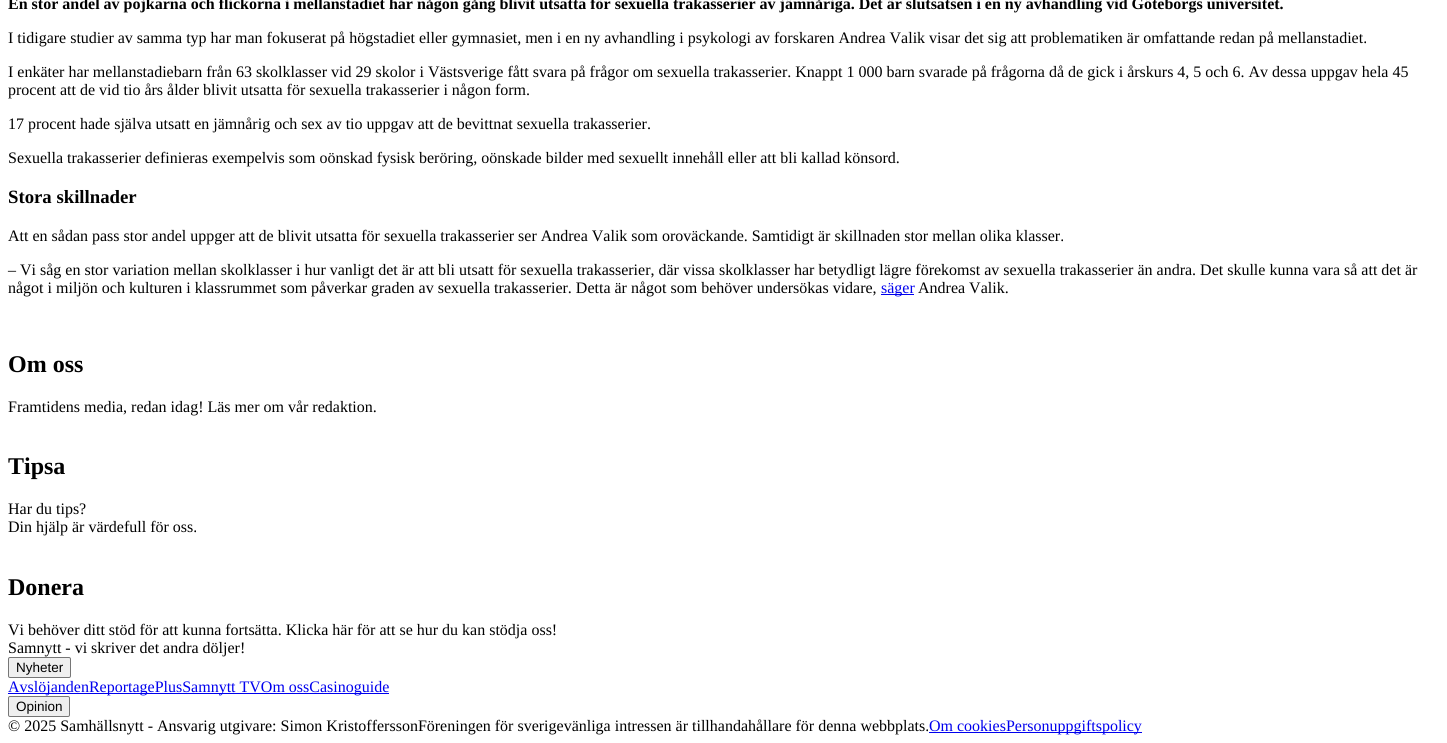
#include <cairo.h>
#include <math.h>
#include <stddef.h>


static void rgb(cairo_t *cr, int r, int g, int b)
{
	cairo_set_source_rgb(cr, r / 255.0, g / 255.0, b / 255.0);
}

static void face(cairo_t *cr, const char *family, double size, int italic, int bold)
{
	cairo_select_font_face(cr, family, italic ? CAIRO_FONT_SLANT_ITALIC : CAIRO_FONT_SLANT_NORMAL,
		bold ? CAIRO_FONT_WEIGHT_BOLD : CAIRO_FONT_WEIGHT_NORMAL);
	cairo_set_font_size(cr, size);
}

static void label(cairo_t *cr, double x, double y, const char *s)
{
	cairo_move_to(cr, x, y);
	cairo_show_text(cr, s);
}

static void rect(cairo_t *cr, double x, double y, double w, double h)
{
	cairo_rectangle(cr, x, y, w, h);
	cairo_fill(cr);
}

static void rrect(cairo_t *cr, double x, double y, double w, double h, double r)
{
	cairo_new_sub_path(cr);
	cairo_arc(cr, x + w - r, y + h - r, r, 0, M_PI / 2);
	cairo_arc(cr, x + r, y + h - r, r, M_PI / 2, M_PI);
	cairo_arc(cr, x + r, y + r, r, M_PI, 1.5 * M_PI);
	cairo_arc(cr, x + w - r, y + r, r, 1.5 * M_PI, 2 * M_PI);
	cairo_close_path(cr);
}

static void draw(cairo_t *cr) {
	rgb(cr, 255, 255, 255);
	cairo_paint(cr);
	face(cr, "Liberation Serif", 16, 0, 1);
	rgb(cr, 0, 0, 0);
	label(cr, 8, 9, "En stor andel av pojkarna och flickorna i mellanstadiet har någon gång blivit utsatta för sexuella trakasserier av jämnåriga. Det är slutsatsen i en ny avhandling vid Göteborgs universitet.");
	face(cr, "Liberation Serif", 16, 0, 0);
	label(cr, 8, 43, "I tidigare studier av samma typ har man fokuserat på högstadiet eller gymnasiet, men i en ny avhandling i psykologi av forskaren Andrea Valik visar det sig att problematiken är omfattande redan på mellanstadiet.");
	label(cr, 8, 77, "I enkäter har mellanstadiebarn från 63 skolklasser vid 29 skolor i Västsverige fått svara på frågor om sexuella trakasserier. Knappt 1 000 barn svarade på frågorna då de gick i årskurs 4, 5 och 6. Av dessa uppgav hela 45");
	label(cr, 8, 95, "procent att de vid tio års ålder blivit utsatta för sexuella trakasserier i någon form.");
	label(cr, 8, 129, "17 procent hade själva utsatt en jämnårig och sex av tio uppgav att de bevittnat sexuella trakasserier.");
	label(cr, 8, 163, "Sexuella trakasserier definieras exempelvis som oönskad fysisk beröring, oönskade bilder med sexuellt innehåll eller att bli kallad könsord.");
	face(cr, "Liberation Serif", 18.75, 0, 1);
	label(cr, 8, 203, "Stora skillnader");
	face(cr, "Liberation Serif", 16, 0, 0);
	label(cr, 8, 241, "Att en sådan pass stor andel uppger att de blivit utsatta för sexuella trakasserier ser Andrea Valik som oroväckande. Samtidigt är skillnaden stor mellan olika klasser.");
	label(cr, 8, 275, "– Vi såg en stor variation mellan skolklasser i hur vanligt det är att bli utsatt för sexuella trakasserier, där vissa skolklasser har betydligt lägre förekomst av sexuella trakasserier än andra. Det skulle kunna vara så att det är");
	label(cr, 8, 293, "något i miljön och kulturen i klassrummet som påverkar graden av sexuella trakasserier. Detta är något som behöver undersökas vidare,");
	rgb(cr, 0, 0, 238);
	rect(cr, 881, 294, 33, 1);
	label(cr, 881, 293, "säger");
	rgb(cr, 0, 0, 0);
	label(cr, 918, 293, "Andrea Valik.");
	face(cr, "Liberation Serif", 24, 0, 1);
	label(cr, 8, 372, "Om oss");
	face(cr, "Liberation Serif", 16, 0, 0);
	label(cr, 8, 412, "Framtidens media, redan idag! Läs mer om vår redaktion.");
	face(cr, "Liberation Serif", 24, 0, 1);
	label(cr, 8, 474, "Tipsa");
	face(cr, "Liberation Serif", 16, 0, 0);
	label(cr, 8, 514, "Har du tips?");
	label(cr, 8, 532, "Din hjälp är värdefull för oss.");
	face(cr, "Liberation Serif", 24, 0, 1);
	label(cr, 8, 595, "Donera");
	face(cr, "Liberation Serif", 16, 0, 0);
	label(cr, 8, 635, "Vi behöver ditt stöd för att kunna fortsätta. Klicka här för att se hur du kan stödja oss!");
	label(cr, 8, 653, "Samnytt - vi skriver det andra döljer!");
	rgb(cr, 239, 239, 239);
	rrect(cr, 8.5, 657.5, 62, 20, 1.5);
	cairo_fill_preserve(cr);
	rgb(cr, 118, 118, 118);
	cairo_set_line_width(cr, 1);
	cairo_stroke(cr);
	face(cr, "Liberation Sans", 13.5, 0, 0);
	rgb(cr, 0, 0, 0);
	label(cr, 16, 672, "Nyheter");
	rgb(cr, 0, 0, 238);
	rect(cr, 8, 693, 381, 1);
	face(cr, "Liberation Serif", 16, 0, 0);
	label(cr, 8, 692, "AvslöjandenReportagePlusSamnytt TVOm ossCasinoguide");
	rgb(cr, 239, 239, 239);
	rrect(cr, 8.5, 696.5, 61, 20, 1.5);
	cairo_fill_preserve(cr);
	rgb(cr, 118, 118, 118);
	cairo_stroke(cr);
	face(cr, "Liberation Sans", 13.5, 0, 0);
	rgb(cr, 0, 0, 0);
	label(cr, 16, 711, "Opinion");
	face(cr, "Liberation Serif", 16, 0, 0);
	label(cr, 8, 731, "© 2025 Samhällsnytt - Ansvarig utgivare: Simon KristofferssonFöreningen för sverigevänliga intressen är tillhandahållare för denna webbplats.");
	rgb(cr, 0, 0, 238);
	rect(cr, 929, 732, 213, 1);
	label(cr, 929, 731, "Om cookiesPersonuppgiftspolicy");
}

int main(void) {
	cairo_surface_t *surface = cairo_image_surface_create(CAIRO_FORMAT_RGB24, 1447, 743);
	cairo_t *cr = cairo_create(surface);
	cairo_font_options_t *options = cairo_font_options_create();
	cairo_font_options_set_hint_metrics(options, CAIRO_HINT_METRICS_OFF);
	cairo_font_options_set_hint_style(options, CAIRO_HINT_STYLE_NONE);
	cairo_set_font_options(cr, options);
	cairo_set_miter_limit(cr, 4);
	draw(cr);
	cairo_surface_write_to_png(surface, "render.png");
	cairo_font_options_destroy(options);
	cairo_destroy(cr);
	cairo_surface_destroy(surface);
	return 0;
}
